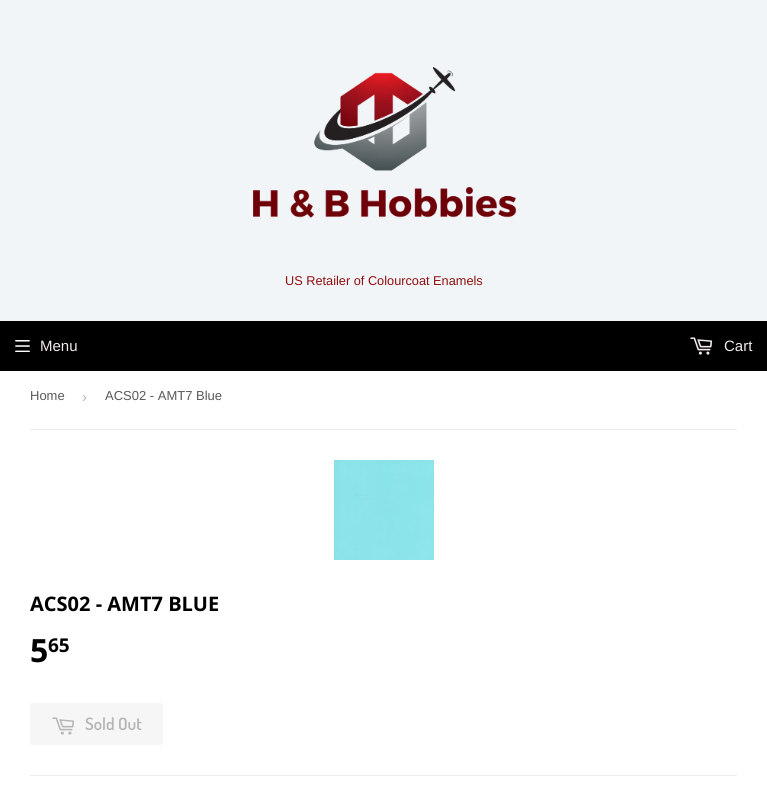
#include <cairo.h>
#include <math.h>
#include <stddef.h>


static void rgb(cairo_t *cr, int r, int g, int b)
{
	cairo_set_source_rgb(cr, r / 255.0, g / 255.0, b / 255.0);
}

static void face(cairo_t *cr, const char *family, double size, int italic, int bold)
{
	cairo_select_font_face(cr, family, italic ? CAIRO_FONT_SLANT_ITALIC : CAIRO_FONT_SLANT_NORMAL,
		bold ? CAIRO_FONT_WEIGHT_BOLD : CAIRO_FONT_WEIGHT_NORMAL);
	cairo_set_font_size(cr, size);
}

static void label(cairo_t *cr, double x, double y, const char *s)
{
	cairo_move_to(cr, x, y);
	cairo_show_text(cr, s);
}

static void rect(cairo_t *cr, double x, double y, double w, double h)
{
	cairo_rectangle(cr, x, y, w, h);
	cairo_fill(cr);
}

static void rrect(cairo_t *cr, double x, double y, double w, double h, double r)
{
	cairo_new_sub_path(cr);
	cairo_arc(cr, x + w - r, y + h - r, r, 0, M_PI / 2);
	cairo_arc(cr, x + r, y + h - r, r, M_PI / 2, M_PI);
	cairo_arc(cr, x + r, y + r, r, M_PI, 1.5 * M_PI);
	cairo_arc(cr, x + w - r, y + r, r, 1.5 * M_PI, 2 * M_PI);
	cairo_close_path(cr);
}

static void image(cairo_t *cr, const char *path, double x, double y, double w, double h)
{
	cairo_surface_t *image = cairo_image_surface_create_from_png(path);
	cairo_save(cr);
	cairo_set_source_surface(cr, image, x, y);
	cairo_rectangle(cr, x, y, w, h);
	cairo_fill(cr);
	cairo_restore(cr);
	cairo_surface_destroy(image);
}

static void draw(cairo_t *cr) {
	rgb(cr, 255, 255, 255);
	cairo_paint(cr);
	rgb(cr, 242, 245, 248);
	rect(cr, 0, 0, 767, 321);
	image(cr, "image0.png", 253, 67, 264, 151);
	face(cr, "Liberation Sans", 12.75, 0, 0);
	rgb(cr, 142, 15, 15);
	label(cr, 285, 285, "US Retailer of Colourcoat Enamels");
	rgb(cr, 0, 0, 0);
	rect(cr, 0, 321, 767, 50);
	image(cr, "image1.png", 15, 340, 15, 12);
	face(cr, "Liberation Sans", 15, 0, 0);
	rgb(cr, 242, 234, 234);
	label(cr, 40, 351, "Menu");
	image(cr, "image2.png", 690, 337, 23, 18);
	label(cr, 724, 351, "Cart");
	rgb(cr, 236, 236, 236);
	rect(cr, 30, 429, 707, 1);
	face(cr, "Liberation Sans", 13, 0, 0);
	rgb(cr, 88, 88, 88);
	label(cr, 30, 400, "Home");
	face(cr, "Liberation Sans", 15, 0, 0);
	rgb(cr, 182, 182, 182);
	label(cr, 82, 402, "›");
	face(cr, "Liberation Sans", 13, 0, 0);
	rgb(cr, 88, 88, 88);
	label(cr, 105, 400, "ACS02 - AMT7 Blue");
	image(cr, "image3.png", 334, 460, 100, 100);
	face(cr, "Open Sans", 20, 0, 1);
	rgb(cr, 0, 0, 0);
	label(cr, 30, 611, "ACS02 - AMT7 BLUE");
	face(cr, "Open Sans", 32, 0, 1);
	label(cr, 30, 662, "5");
	face(cr, "Open Sans", 19, 0, 1);
	label(cr, 48, 652, "65");
	rgb(cr, 246, 246, 246);
	rrect(cr, 30, 703, 133, 42, 2);
	cairo_fill(cr);
	image(cr, "image4.png", 52, 717, 23, 18);
	face(cr, "Dosis SemiBold", 17, 0, 0);
	rgb(cr, 182, 182, 182);
	label(cr, 85, 730, "Sold Out");
	rgb(cr, 236, 236, 236);
	rect(cr, 30, 775, 707, 1);
}

int main(void) {
	cairo_surface_t *surface = cairo_image_surface_create(CAIRO_FORMAT_RGB24, 767, 800);
	cairo_t *cr = cairo_create(surface);
	cairo_font_options_t *options = cairo_font_options_create();
	cairo_font_options_set_hint_metrics(options, CAIRO_HINT_METRICS_OFF);
	cairo_font_options_set_hint_style(options, CAIRO_HINT_STYLE_NONE);
	cairo_set_font_options(cr, options);
	cairo_set_miter_limit(cr, 4);
	draw(cr);
	cairo_surface_write_to_png(surface, "render.png");
	cairo_font_options_destroy(options);
	cairo_destroy(cr);
	cairo_surface_destroy(surface);
	return 0;
}
